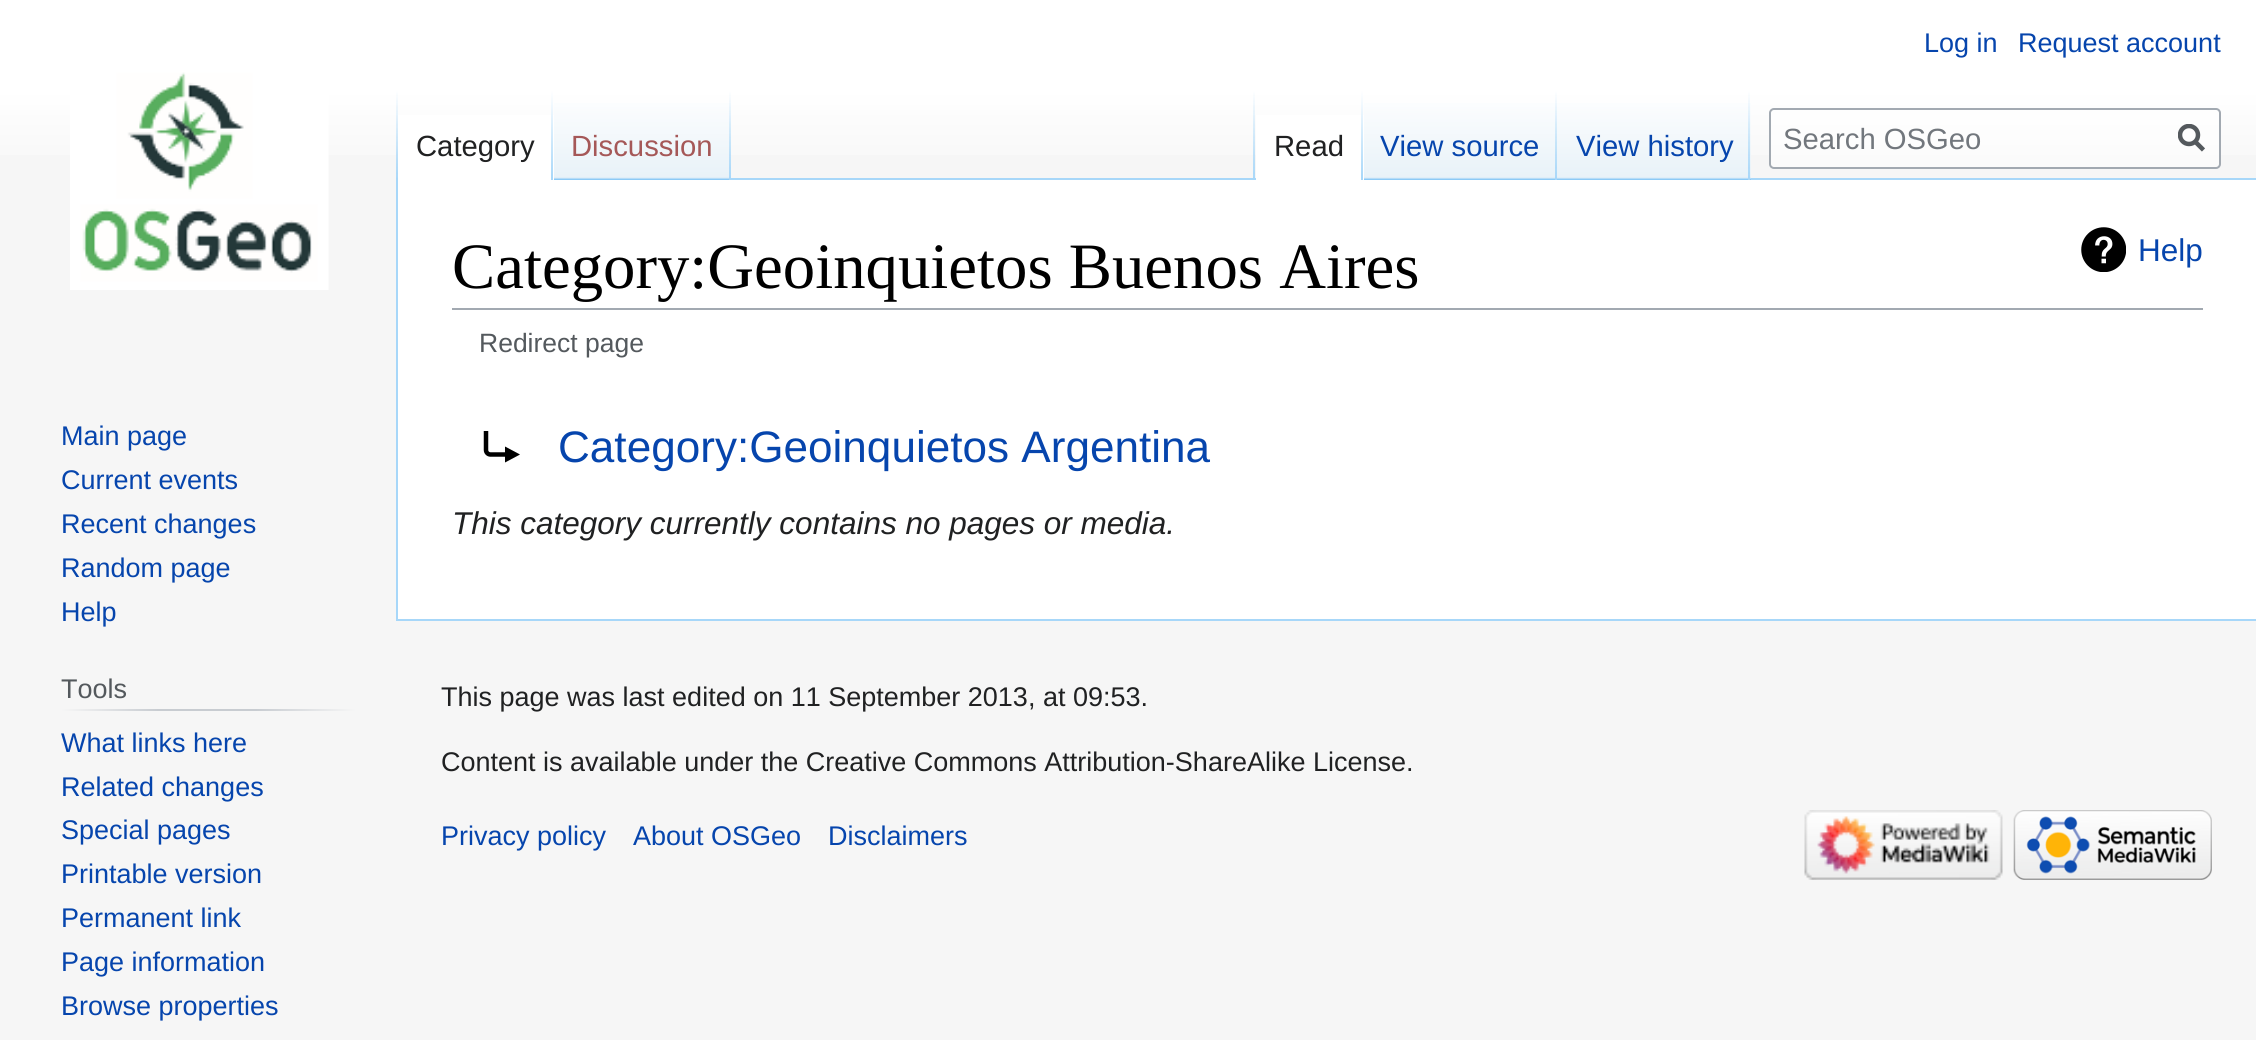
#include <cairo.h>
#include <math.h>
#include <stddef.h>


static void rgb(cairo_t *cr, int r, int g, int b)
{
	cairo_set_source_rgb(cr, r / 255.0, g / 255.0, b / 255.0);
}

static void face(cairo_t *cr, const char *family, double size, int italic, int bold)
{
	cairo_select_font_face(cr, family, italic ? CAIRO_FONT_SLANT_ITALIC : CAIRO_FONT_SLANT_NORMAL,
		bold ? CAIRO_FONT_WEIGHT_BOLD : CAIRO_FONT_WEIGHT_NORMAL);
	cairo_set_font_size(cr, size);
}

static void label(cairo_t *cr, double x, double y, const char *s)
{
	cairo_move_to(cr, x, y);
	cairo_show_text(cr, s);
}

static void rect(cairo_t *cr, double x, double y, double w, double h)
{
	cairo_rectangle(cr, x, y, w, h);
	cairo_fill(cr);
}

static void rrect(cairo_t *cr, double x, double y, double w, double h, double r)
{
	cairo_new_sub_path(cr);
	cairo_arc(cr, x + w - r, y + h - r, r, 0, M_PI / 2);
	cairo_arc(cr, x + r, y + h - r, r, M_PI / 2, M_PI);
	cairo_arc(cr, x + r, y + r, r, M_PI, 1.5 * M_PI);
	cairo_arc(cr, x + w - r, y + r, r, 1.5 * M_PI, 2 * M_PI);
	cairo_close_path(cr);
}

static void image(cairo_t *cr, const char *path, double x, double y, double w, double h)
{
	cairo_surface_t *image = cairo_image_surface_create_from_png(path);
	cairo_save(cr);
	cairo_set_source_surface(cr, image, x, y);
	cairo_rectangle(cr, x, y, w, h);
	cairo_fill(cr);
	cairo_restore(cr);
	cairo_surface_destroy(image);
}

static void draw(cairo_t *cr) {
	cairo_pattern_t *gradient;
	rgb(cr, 246, 246, 246);
	cairo_paint(cr);
	gradient = cairo_pattern_create_linear(1128, 0, 1128, 180);
	cairo_pattern_add_color_stop_rgba(gradient, 0.5, 1, 1, 1, 1);
	cairo_pattern_add_color_stop_rgba(gradient, 1, 0.965, 0.965, 0.965, 1);
	cairo_set_source(cr, gradient);
	cairo_pattern_destroy(gradient);
	rect(cr, 0, 0, 2256, 155);
	face(cr, "Liberation Sans", 27, 0, 0);
	rgb(cr, 6, 69, 173);
	label(cr, 1924, 52, "Log in");
	label(cr, 2018, 52, "Request account");
	rgb(cr, 167, 215, 249);
	rect(cr, 396, 619, 1860, 2);
	rect(cr, 396, 178, 2, 443);
	gradient = cairo_pattern_create_linear(397, 90, 397, 180);
	cairo_pattern_add_color_stop_rgba(gradient, 0, 0.655, 0.843, 0.976, 0);
	cairo_pattern_add_color_stop_rgba(gradient, 1, 0.655, 0.843, 0.976, 1);
	cairo_set_source(cr, gradient);
	cairo_pattern_destroy(gradient);
	rect(cr, 396, 90, 2, 90);
	rgb(cr, 255, 255, 255);
	rect(cr, 398, 115, 156, 65);
	gradient = cairo_pattern_create_linear(552, 90, 552, 180);
	cairo_pattern_add_color_stop_rgba(gradient, 0, 1, 1, 1, 1);
	cairo_pattern_add_color_stop_rgba(gradient, 1, 0.655, 0.843, 0.976, 1);
	cairo_set_source(cr, gradient);
	cairo_pattern_destroy(gradient);
	rect(cr, 551, 90, 2, 90);
	face(cr, "Liberation Sans", 29.25, 0, 0);
	rgb(cr, 32, 33, 34);
	label(cr, 416, 156, "Category");
	gradient = cairo_pattern_create_linear(642, 180, 642, 90);
	cairo_pattern_add_color_stop_rgba(gradient, 0, 0.467, 0.757, 0.965, 1);
	cairo_pattern_add_color_stop_rgba(gradient, 0.03, 0.91, 0.949, 0.973, 1);
	cairo_pattern_add_color_stop_rgba(gradient, 1, 1, 1, 1, 1);
	cairo_set_source(cr, gradient);
	cairo_pattern_destroy(gradient);
	rect(cr, 554, 103, 177, 77);
	gradient = cairo_pattern_create_linear(730, 90, 730, 180);
	cairo_pattern_add_color_stop_rgba(gradient, 0, 0.655, 0.843, 0.976, 0);
	cairo_pattern_add_color_stop_rgba(gradient, 1, 0.655, 0.843, 0.976, 1);
	cairo_set_source(cr, gradient);
	cairo_pattern_destroy(gradient);
	rect(cr, 729, 90, 2, 90);
	rgb(cr, 165, 88, 88);
	label(cr, 571, 156, "Discussion");
	rgb(cr, 167, 215, 249);
	rect(cr, 731, 178, 1525, 2);
	gradient = cairo_pattern_create_linear(1254, 90, 1254, 180);
	cairo_pattern_add_color_stop_rgba(gradient, 0, 0.655, 0.843, 0.976, 0);
	cairo_pattern_add_color_stop_rgba(gradient, 1, 0.655, 0.843, 0.976, 1);
	cairo_set_source(cr, gradient);
	cairo_pattern_destroy(gradient);
	rect(cr, 1253, 90, 2, 90);
	rgb(cr, 255, 255, 255);
	rect(cr, 1256, 115, 108, 65);
	gradient = cairo_pattern_create_linear(1362, 90, 1362, 180);
	cairo_pattern_add_color_stop_rgba(gradient, 0, 1, 1, 1, 1);
	cairo_pattern_add_color_stop_rgba(gradient, 1, 0.655, 0.843, 0.976, 1);
	cairo_set_source(cr, gradient);
	cairo_pattern_destroy(gradient);
	rect(cr, 1361, 90, 2, 90);
	rgb(cr, 32, 33, 34);
	label(cr, 1274, 156, "Read");
	gradient = cairo_pattern_create_linear(1460, 180, 1460, 90);
	cairo_pattern_add_color_stop_rgba(gradient, 0, 0.467, 0.757, 0.965, 1);
	cairo_pattern_add_color_stop_rgba(gradient, 0.03, 0.91, 0.949, 0.973, 1);
	cairo_pattern_add_color_stop_rgba(gradient, 1, 1, 1, 1, 1);
	cairo_set_source(cr, gradient);
	cairo_pattern_destroy(gradient);
	rect(cr, 1364, 103, 193, 77);
	gradient = cairo_pattern_create_linear(1556, 90, 1556, 180);
	cairo_pattern_add_color_stop_rgba(gradient, 0, 0.655, 0.843, 0.976, 0);
	cairo_pattern_add_color_stop_rgba(gradient, 1, 0.655, 0.843, 0.976, 1);
	cairo_set_source(cr, gradient);
	cairo_pattern_destroy(gradient);
	rect(cr, 1555, 90, 2, 90);
	rgb(cr, 6, 69, 173);
	label(cr, 1380, 156, "View source");
	gradient = cairo_pattern_create_linear(1654, 180, 1654, 90);
	cairo_pattern_add_color_stop_rgba(gradient, 0, 0.467, 0.757, 0.965, 1);
	cairo_pattern_add_color_stop_rgba(gradient, 0.03, 0.91, 0.949, 0.973, 1);
	cairo_pattern_add_color_stop_rgba(gradient, 1, 1, 1, 1, 1);
	cairo_set_source(cr, gradient);
	cairo_pattern_destroy(gradient);
	rect(cr, 1557, 103, 194, 77);
	gradient = cairo_pattern_create_linear(1749, 90, 1749, 180);
	cairo_pattern_add_color_stop_rgba(gradient, 0, 0.655, 0.843, 0.976, 0);
	cairo_pattern_add_color_stop_rgba(gradient, 1, 0.655, 0.843, 0.976, 1);
	cairo_set_source(cr, gradient);
	cairo_pattern_destroy(gradient);
	rect(cr, 1748, 90, 2, 90);
	rgb(cr, 6, 69, 173);
	label(cr, 1576, 156, "View history");
	cairo_set_source_rgba(cr, 1, 1, 1, 0.5);
	rrect(cr, 1770, 109, 450, 59, 4);
	cairo_fill_preserve(cr);
	rgb(cr, 162, 169, 177);
	cairo_stroke(cr);
	rgb(cr, 114, 119, 125);
	label(cr, 1783, 149, "Search OSGeo");
	cairo_new_path(cr);
	cairo_move_to(cr, 2203.5, 150);
	cairo_line_to(cr, 2194.5, 141);
	rgb(cr, 84, 89, 93);
	cairo_set_line_width(cr, 4.5);
	cairo_stroke(cr);
	cairo_save(cr);
	cairo_rectangle(cr, 2178, 124, 27, 29);
	cairo_clip(cr);
	cairo_arc(cr, 2189, 135, 9, 0, 2 * M_PI);
	cairo_stroke(cr);
	cairo_restore(cr);
	image(cr, "image0.png", 70, 72, 259, 218);
	face(cr, "Liberation Sans", 27, 0, 0);
	rgb(cr, 6, 69, 173);
	label(cr, 61, 445, "Main page");
	label(cr, 61, 489, "Current events");
	label(cr, 61, 533, "Recent changes");
	label(cr, 61, 577, "Random page");
	label(cr, 61, 621, "Help");
	gradient = cairo_pattern_create_linear(61, 710, 356, 710);
	cairo_pattern_add_color_stop_rgba(gradient, 0, 0.965, 0.965, 0.965, 1);
	cairo_pattern_add_color_stop_rgba(gradient, 0.33, 0.784, 0.8, 0.82, 1);
	cairo_pattern_add_color_stop_rgba(gradient, 0.66, 0.784, 0.8, 0.82, 1);
	cairo_pattern_add_color_stop_rgba(gradient, 1, 0.965, 0.965, 0.965, 1);
	cairo_set_source(cr, gradient);
	cairo_pattern_destroy(gradient);
	rect(cr, 61, 709, 295, 2);
	rgb(cr, 84, 89, 93);
	label(cr, 61, 698, "Tools");
	rgb(cr, 6, 69, 173);
	label(cr, 61, 752, "What links here");
	label(cr, 61, 796, "Related changes");
	label(cr, 61, 839, "Special pages");
	label(cr, 61, 883, "Printable version");
	label(cr, 61, 927, "Permanent link");
	label(cr, 61, 971, "Page information");
	label(cr, 61, 1015, "Browse properties");
	rgb(cr, 255, 255, 255);
	rect(cr, 398, 180, 1858, 439);
	rgb(cr, 162, 169, 177);
	rect(cr, 452, 308, 1751, 2);
	face(cr, "Liberation Serif", 64.75, 0, 0);
	rgb(cr, 0, 0, 0);
	label(cr, 452, 288, "Category:Geoinquietos Buenos Aires");
	image(cr, "image1.png", 2081, 227, 45, 45);
	face(cr, "Liberation Sans", 31.5, 0, 0);
	rgb(cr, 6, 69, 173);
	label(cr, 2138, 261, "Help");
	face(cr, "Liberation Sans", 26.5, 0, 0);
	rgb(cr, 84, 89, 93);
	label(cr, 479, 352, "Redirect page");
	face(cr, "Liberation Sans", 44.1, 0, 0);
	rgb(cr, 6, 69, 173);
	label(cr, 558, 462, "Category:Geoinquietos Argentina");
	cairo_new_path(cr);
	cairo_move_to(cr, 486, 431);
	cairo_line_to(cr, 486, 450);
	cairo_curve_to(cr, 486, 452.5, 488, 454.5, 490.5, 454.5);
	cairo_line_to(cr, 511, 454.5);
	rgb(cr, 0, 0, 0);
	cairo_stroke(cr);
	cairo_new_path(cr);
	cairo_move_to(cr, 505, 446.5);
	cairo_line_to(cr, 505, 462.5);
	cairo_line_to(cr, 520, 454.5);
	cairo_close_path(cr);
	cairo_fill(cr);
	face(cr, "Liberation Sans", 31.5, 1, 0);
	rgb(cr, 32, 33, 34);
	label(cr, 452, 534, "This category currently contains no pages or media.");
	face(cr, "Liberation Sans", 27, 0, 0);
	label(cr, 441, 706, "This page was last edited on 11 September 2013, at 09:53.");
	label(cr, 441, 771, "Content is available under the Creative Commons Attribution-ShareAlike License.");
	rgb(cr, 6, 69, 173);
	label(cr, 441, 845, "Privacy policy");
	label(cr, 633, 845, "About OSGeo");
	label(cr, 828, 845, "Disclaimers");
	image(cr, "image2.png", 1804, 810, 199, 70);
	image(cr, "image3.png", 2013, 810, 199, 70);
}

int main(void) {
	cairo_surface_t *surface = cairo_image_surface_create(CAIRO_FORMAT_RGB24, 2256, 1040);
	cairo_t *cr = cairo_create(surface);
	cairo_font_options_t *options = cairo_font_options_create();
	cairo_font_options_set_hint_metrics(options, CAIRO_HINT_METRICS_OFF);
	cairo_font_options_set_hint_style(options, CAIRO_HINT_STYLE_NONE);
	cairo_set_font_options(cr, options);
	cairo_set_miter_limit(cr, 4);
	draw(cr);
	cairo_surface_write_to_png(surface, "render.png");
	cairo_font_options_destroy(options);
	cairo_destroy(cr);
	cairo_surface_destroy(surface);
	return 0;
}
